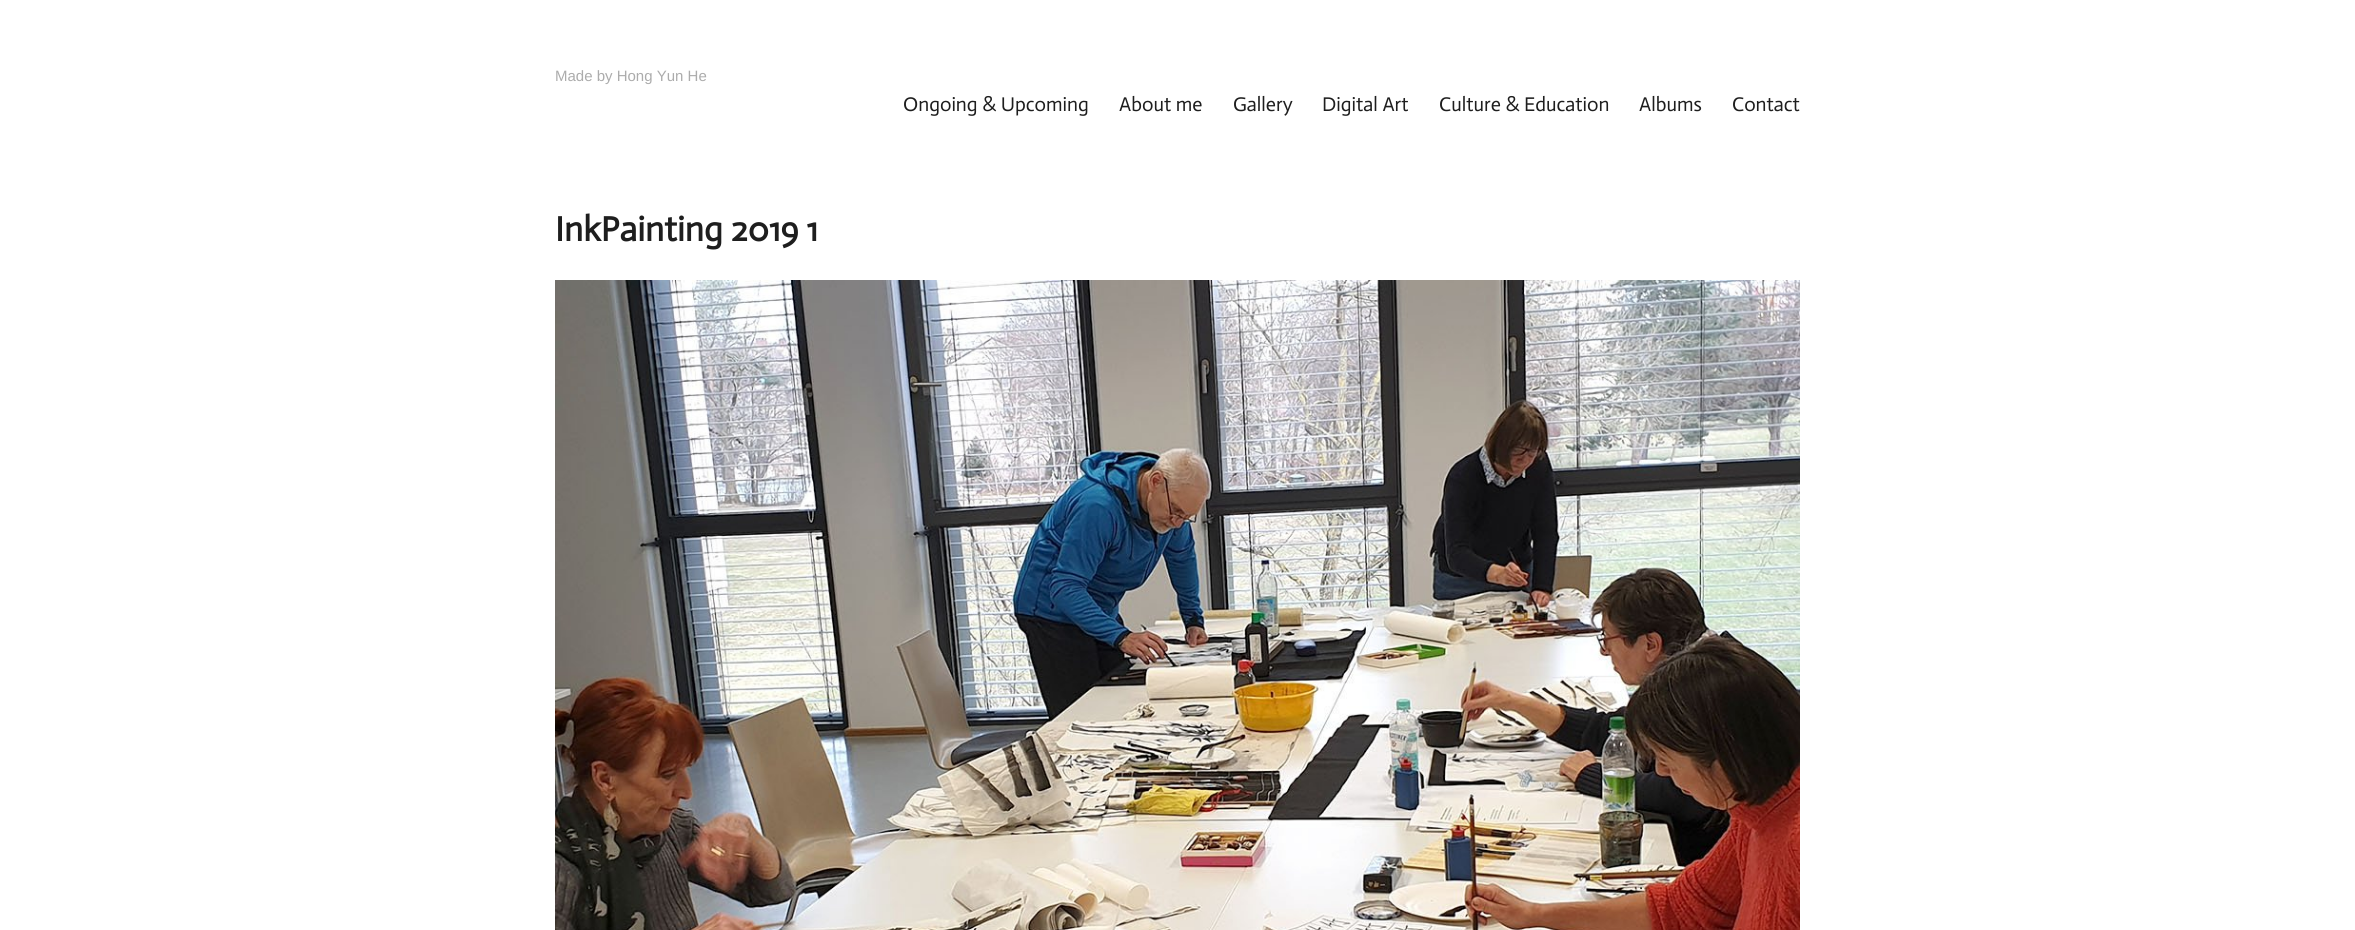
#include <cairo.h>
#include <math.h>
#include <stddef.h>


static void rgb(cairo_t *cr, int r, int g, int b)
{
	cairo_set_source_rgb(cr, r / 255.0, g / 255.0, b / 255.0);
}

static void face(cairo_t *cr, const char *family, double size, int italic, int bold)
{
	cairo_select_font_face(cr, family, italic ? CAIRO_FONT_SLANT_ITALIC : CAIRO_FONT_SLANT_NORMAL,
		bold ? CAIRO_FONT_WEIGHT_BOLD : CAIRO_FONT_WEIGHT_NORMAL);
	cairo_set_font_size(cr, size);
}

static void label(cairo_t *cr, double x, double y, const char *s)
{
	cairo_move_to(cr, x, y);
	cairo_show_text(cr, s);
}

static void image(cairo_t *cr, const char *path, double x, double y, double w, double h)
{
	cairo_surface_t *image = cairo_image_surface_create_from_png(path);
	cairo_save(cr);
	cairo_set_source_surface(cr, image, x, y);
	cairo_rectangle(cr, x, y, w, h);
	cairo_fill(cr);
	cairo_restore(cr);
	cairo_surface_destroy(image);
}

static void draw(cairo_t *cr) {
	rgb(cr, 255, 255, 255);
	cairo_paint(cr);
	face(cr, "Liberation Sans", 15, 0, 0);
	rgb(cr, 172, 172, 172);
	label(cr, 555, 81, "Made by Hong Yun He");
	face(cr, "Actor", 20, 0, 0);
	rgb(cr, 30, 30, 30);
	label(cr, 903, 111, "Ongoing & Upcoming");
	label(cr, 1119, 111, "About me");
	label(cr, 1233, 111, "Gallery");
	label(cr, 1322, 111, "Digital Art");
	label(cr, 1439, 111, "Culture & Education");
	label(cr, 1639, 111, "Albums");
	label(cr, 1732, 111, "Contact");
	face(cr, "Actor", 35, 0, 1);
	label(cr, 555, 241, "InkPainting 2019 1");
	image(cr, "image0.png", 555, 280, 1245, 650);
}

int main(void) {
	cairo_surface_t *surface = cairo_image_surface_create(CAIRO_FORMAT_RGB24, 2355, 930);
	cairo_t *cr = cairo_create(surface);
	cairo_font_options_t *options = cairo_font_options_create();
	cairo_font_options_set_hint_metrics(options, CAIRO_HINT_METRICS_OFF);
	cairo_font_options_set_hint_style(options, CAIRO_HINT_STYLE_NONE);
	cairo_set_font_options(cr, options);
	cairo_set_miter_limit(cr, 4);
	draw(cr);
	cairo_surface_write_to_png(surface, "render.png");
	cairo_font_options_destroy(options);
	cairo_destroy(cr);
	cairo_surface_destroy(surface);
	return 0;
}
